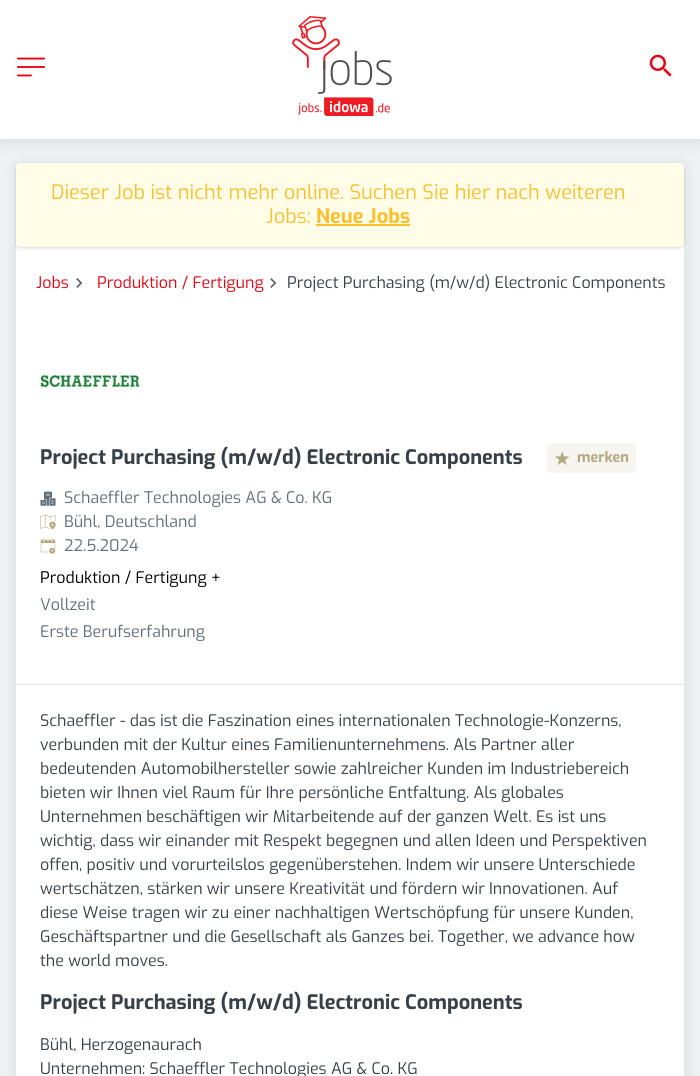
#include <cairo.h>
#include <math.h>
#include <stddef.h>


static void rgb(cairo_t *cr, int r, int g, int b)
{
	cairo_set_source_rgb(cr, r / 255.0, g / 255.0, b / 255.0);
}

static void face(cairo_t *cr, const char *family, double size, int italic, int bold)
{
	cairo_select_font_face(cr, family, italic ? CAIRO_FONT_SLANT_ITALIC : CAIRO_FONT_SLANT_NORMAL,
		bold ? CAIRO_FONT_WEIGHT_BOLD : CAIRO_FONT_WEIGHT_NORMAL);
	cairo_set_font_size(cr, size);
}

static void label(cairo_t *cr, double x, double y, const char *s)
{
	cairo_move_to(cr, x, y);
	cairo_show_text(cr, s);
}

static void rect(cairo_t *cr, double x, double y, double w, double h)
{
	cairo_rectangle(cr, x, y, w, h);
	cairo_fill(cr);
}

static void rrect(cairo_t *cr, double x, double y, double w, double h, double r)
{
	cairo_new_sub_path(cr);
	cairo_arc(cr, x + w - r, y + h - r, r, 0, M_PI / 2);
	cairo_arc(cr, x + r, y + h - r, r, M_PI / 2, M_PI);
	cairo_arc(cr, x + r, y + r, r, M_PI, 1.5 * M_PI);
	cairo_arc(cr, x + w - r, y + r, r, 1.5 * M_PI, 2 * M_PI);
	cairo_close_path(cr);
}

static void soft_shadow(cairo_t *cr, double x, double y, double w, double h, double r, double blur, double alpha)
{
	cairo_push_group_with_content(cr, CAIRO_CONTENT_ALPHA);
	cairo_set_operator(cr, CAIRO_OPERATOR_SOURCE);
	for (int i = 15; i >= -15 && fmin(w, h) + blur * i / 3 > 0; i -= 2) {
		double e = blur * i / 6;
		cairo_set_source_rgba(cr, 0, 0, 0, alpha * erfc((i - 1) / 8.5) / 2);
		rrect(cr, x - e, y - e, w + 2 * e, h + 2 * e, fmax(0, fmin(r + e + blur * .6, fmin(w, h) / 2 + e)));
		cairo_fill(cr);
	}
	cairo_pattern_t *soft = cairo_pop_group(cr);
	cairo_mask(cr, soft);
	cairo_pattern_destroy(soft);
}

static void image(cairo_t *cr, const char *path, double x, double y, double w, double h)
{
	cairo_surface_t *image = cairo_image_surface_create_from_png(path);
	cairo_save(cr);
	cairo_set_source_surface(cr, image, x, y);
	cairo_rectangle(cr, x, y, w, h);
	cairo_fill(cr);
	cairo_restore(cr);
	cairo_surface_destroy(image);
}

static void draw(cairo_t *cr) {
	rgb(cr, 239, 242, 244);
	cairo_paint(cr);
	rgb(cr, 0, 0, 0);
	soft_shadow(cr, 0, 3, 700, 139, 0, 7.5, 0.1);
	rgb(cr, 255, 255, 255);
	rect(cr, 0, 0, 700, 139);
	image(cr, "image0.png", 17, 57, 28, 20);
	image(cr, "image1.png", 292, 16, 100, 100);
	image(cr, "image2.png", 649, 54, 23, 23);
	rgb(cr, 0, 0, 0);
	soft_shadow(cr, 16, 166, 668, 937, 4, 7.5, 0.1);
	rgb(cr, 255, 255, 255);
	rrect(cr, 16, 163, 668, 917, 4);
	cairo_fill(cr);
	rgb(cr, 0, 0, 0);
	soft_shadow(cr, 16, 164, 668, 84, 4, 1, 0.06);
	soft_shadow(cr, 16, 164, 668, 84, 4, 1.5, 0.1);
	rgb(cr, 255, 253, 231);
	rrect(cr, 17, 164, 666, 82, 3);
	cairo_fill_preserve(cr);
	cairo_stroke(cr);
	face(cr, "Exo", 20, 0, 0);
	rgb(cr, 251, 192, 45);
	label(cr, 51, 199, "Dieser Job ist nicht mehr online. Suchen Sie hier nach weiteren");
	label(cr, 266, 223, "Jobs:");
	face(cr, "Exo", 20, 0, 1);
	label(cr, 316, 223, "Neue Jobs");
	rect(cr, 316, 224, 94, 2);
	face(cr, "Exo", 16, 0, 0);
	rgb(cr, 227, 6, 19);
	label(cr, 36, 288, "Jobs");
	image(cr, "image3.png", 76, 278, 7, 10);
	label(cr, 97, 288, "Produktion / Fertigung");
	image(cr, "image3.png", 270, 278, 7, 10);
	rgb(cr, 55, 64, 71);
	label(cr, 287, 288, "Project Purchasing (m/w/d) Electronic Components");
	rgb(cr, 223, 228, 234);
	rect(cr, 16, 684, 668, 1);
	image(cr, "image4.png", 40, 373, 100, 18);
	face(cr, "Exo", 20, 0, 1);
	rgb(cr, 55, 64, 71);
	label(cr, 40, 464, "Project Purchasing (m/w/d) Electronic Components");
	rgb(cr, 246, 245, 240);
	rrect(cr, 547, 443, 89, 30, 4);
	cairo_fill(cr);
	image(cr, "image5.png", 555, 451, 14, 14);
	face(cr, "Exo", 14.5, 0, 1);
	rgb(cr, 181, 167, 127);
	label(cr, 577, 462, "merken");
	image(cr, "image6.png", 40, 490, 16, 16);
	face(cr, "Exo", 16, 0, 0);
	rgb(cr, 95, 110, 120);
	label(cr, 64, 503, "Schaeffler Technologies AG & Co. KG");
	image(cr, "image7.png", 40, 514, 16, 16);
	label(cr, 64, 527, "Bühl, Deutschland");
	image(cr, "image8.png", 40, 538, 16, 16);
	label(cr, 64, 551, "22.5.2024");
	rgb(cr, 0, 0, 0);
	label(cr, 40, 583, "Produktion / Fertigung +");
	rgb(cr, 95, 110, 120);
	label(cr, 40, 610, "Vollzeit");
	label(cr, 40, 637, "Erste Berufserfahrung");
	rgb(cr, 55, 64, 71);
	label(cr, 40, 726, "Schaeffler - das ist die Faszination eines internationalen Technologie-Konzerns,");
	label(cr, 40, 750, "verbunden mit der Kultur eines Familienunternehmens. Als Partner aller");
	label(cr, 40, 774, "bedeutenden Automobilhersteller sowie zahlreicher Kunden im Industriebereich");
	label(cr, 40, 798, "bieten wir Ihnen viel Raum für Ihre persönliche Entfaltung. Als globales");
	label(cr, 40, 822, "Unternehmen beschäftigen wir Mitarbeitende auf der ganzen Welt. Es ist uns");
	label(cr, 40, 846, "wichtig, dass wir einander mit Respekt begegnen und allen Ideen und Perspektiven");
	label(cr, 40, 870, "offen, positiv und vorurteilslos gegenüberstehen. Indem wir unsere Unterschiede");
	label(cr, 40, 894, "wertschätzen, stärken wir unsere Kreativität und fördern wir Innovationen. Auf");
	label(cr, 40, 918, "diese Weise tragen wir zu einer nachhaltigen Wertschöpfung für unsere Kunden,");
	label(cr, 40, 942, "Geschäftspartner und die Gesellschaft als Ganzes bei. Together, we advance how");
	label(cr, 40, 966, "the world moves.");
	face(cr, "Exo", 20, 0, 1);
	label(cr, 40, 1009, "Project Purchasing (m/w/d) Electronic Components");
	face(cr, "Exo", 16, 0, 0);
	label(cr, 40, 1050, "Bühl, Herzogenaurach");
	label(cr, 40, 1074, "Unternehmen: Schaeffler Technologies AG & Co. KG");
}

int main(void) {
	cairo_surface_t *surface = cairo_image_surface_create(CAIRO_FORMAT_RGB24, 700, 1076);
	cairo_t *cr = cairo_create(surface);
	cairo_font_options_t *options = cairo_font_options_create();
	cairo_font_options_set_hint_metrics(options, CAIRO_HINT_METRICS_OFF);
	cairo_font_options_set_hint_style(options, CAIRO_HINT_STYLE_NONE);
	cairo_set_font_options(cr, options);
	cairo_set_miter_limit(cr, 4);
	draw(cr);
	cairo_surface_write_to_png(surface, "render.png");
	cairo_font_options_destroy(options);
	cairo_destroy(cr);
	cairo_surface_destroy(surface);
	return 0;
}
